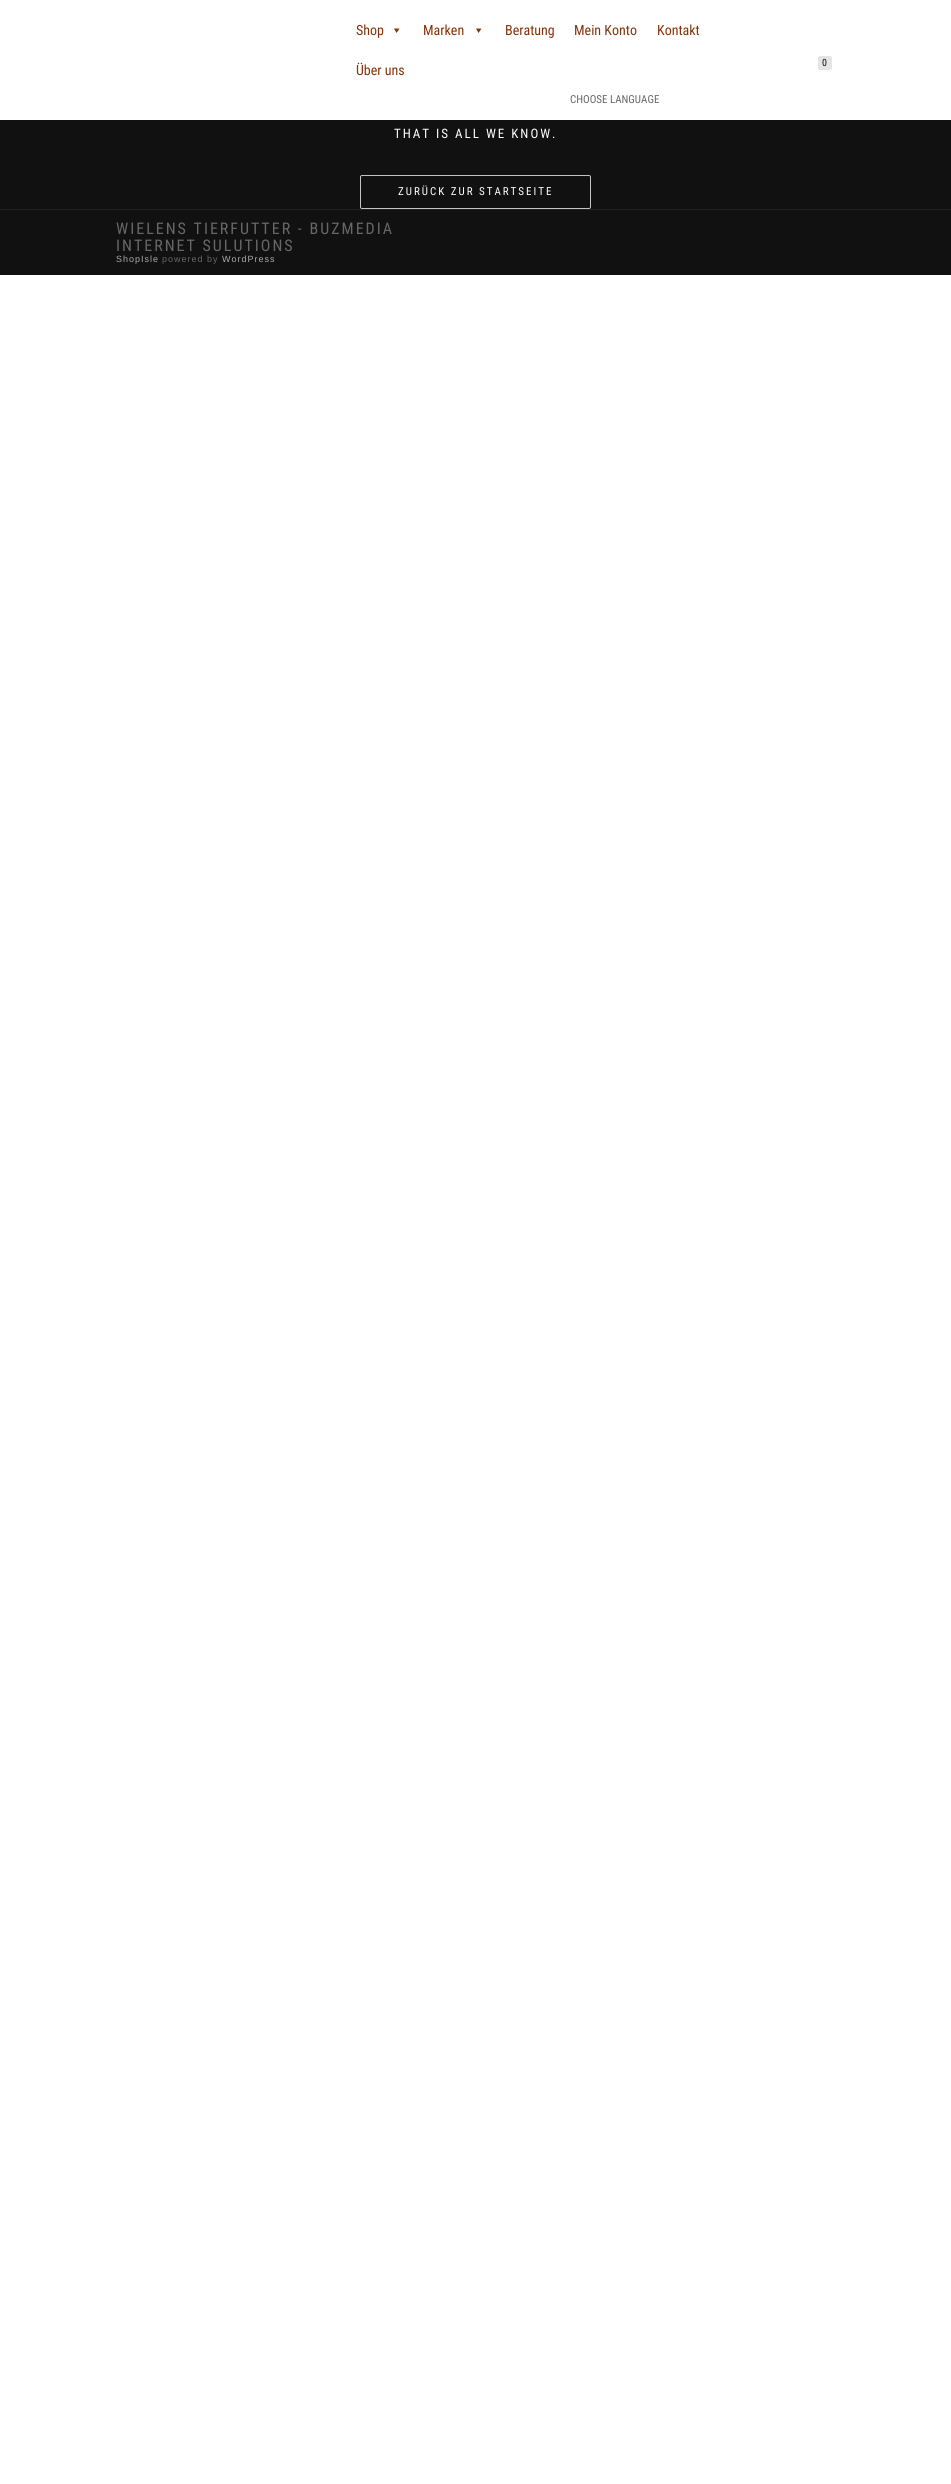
#include <cairo.h>
#include <math.h>
#include <stddef.h>


static void rgb(cairo_t *cr, int r, int g, int b)
{
	cairo_set_source_rgb(cr, r / 255.0, g / 255.0, b / 255.0);
}

static void face(cairo_t *cr, const char *family, double size, int italic, int bold)
{
	cairo_select_font_face(cr, family, italic ? CAIRO_FONT_SLANT_ITALIC : CAIRO_FONT_SLANT_NORMAL,
		bold ? CAIRO_FONT_WEIGHT_BOLD : CAIRO_FONT_WEIGHT_NORMAL);
	cairo_set_font_size(cr, size);
}

static void label(cairo_t *cr, double x, double y, const char *s)
{
	cairo_move_to(cr, x, y);
	cairo_show_text(cr, s);
}

static void tracked(cairo_t *cr, double x, double y, const char *s, double letter, double word)
{
	cairo_move_to(cr, x, y);
	while (*s) {
		char ch[5] = {0};
		int n = 0;
		do ch[n++] = *s++; while ((*s & 0xC0) == 0x80);
		cairo_show_text(cr, ch);
		cairo_rel_move_to(cr, letter + word * (*ch == ' '), 0);
	}
}

static void rect(cairo_t *cr, double x, double y, double w, double h)
{
	cairo_rectangle(cr, x, y, w, h);
	cairo_fill(cr);
}

static void rrect(cairo_t *cr, double x, double y, double w, double h, double r)
{
	cairo_new_sub_path(cr);
	cairo_arc(cr, x + w - r, y + h - r, r, 0, M_PI / 2);
	cairo_arc(cr, x + r, y + h - r, r, M_PI / 2, M_PI);
	cairo_arc(cr, x + r, y + r, r, M_PI, 1.5 * M_PI);
	cairo_arc(cr, x + w - r, y + r, r, 1.5 * M_PI, 2 * M_PI);
	cairo_close_path(cr);
}

static void draw(cairo_t *cr) {
	rgb(cr, 255, 255, 255);
	cairo_paint(cr);
	face(cr, "Roboto Condensed", 14, 0, 0);
	rgb(cr, 133, 52, 9);
	label(cr, 356, 35, "Shop");
	cairo_new_path(cr);
	cairo_move_to(cr, 399.5, 28.5);
	cairo_line_to(cr, 396.5, 33);
	cairo_line_to(cr, 394, 28.5);
	cairo_close_path(cr);
	cairo_fill(cr);
	label(cr, 423, 35, "Marken");
	cairo_new_path(cr);
	cairo_move_to(cr, 481.5, 28.5);
	cairo_line_to(cr, 478.5, 33);
	cairo_line_to(cr, 476, 28.5);
	cairo_close_path(cr);
	cairo_fill(cr);
	label(cr, 505, 35, "Beratung");
	label(cr, 574, 35, "Mein Konto");
	label(cr, 657, 35, "Kontakt");
	label(cr, 356, 75, "Über uns");
	face(cr, "Roboto Condensed", 11, 0, 0);
	rgb(cr, 103, 103, 103);
	label(cr, 570, 103, "CHOOSE LANGUAGE");
	rgb(cr, 229, 229, 229);
	rrect(cr, 818, 56, 14, 14, 2);
	cairo_fill(cr);
	face(cr, "Roboto Condensed", 10, 0, 0);
	rgb(cr, 17, 17, 17);
	label(cr, 822, 66, "0");
	rect(cr, 0, 120, 951, 89);
	face(cr, "Roboto Condensed", 13, 0, 0);
	rgb(cr, 255, 255, 255);
	tracked(cr, 394, 138, "THAT IS ALL WE KNOW.", 2, 0);
	rrect(cr, 360.5, 175.5, 230, 33, 1.5);
	rgb(cr, 196, 196, 196);
	cairo_set_line_width(cr, 1);
	cairo_stroke(cr);
	face(cr, "Roboto Condensed", 11, 0, 0);
	rgb(cr, 255, 255, 255);
	tracked(cr, 398, 195, "ZURÜCK ZUR STARTSEITE", 2, 0);
	rgb(cr, 17, 17, 17);
	rect(cr, 0, 210, 951, 65);
	rgb(cr, 32, 32, 32);
	rect(cr, 0, 209, 951, 1);
	face(cr, "Roboto Condensed", 16, 0, 0);
	rgb(cr, 103, 103, 103);
	tracked(cr, 116, 234, "WIELENS TIERFUTTER - BUZMEDIA", 2, 0);
	tracked(cr, 116, 251, "INTERNET SULUTIONS", 2, 0);
	face(cr, "Liberation Sans", 9, 0, 0);
	rgb(cr, 170, 170, 170);
	tracked(cr, 116, 262, "ShopIsle", 1, 0);
	rgb(cr, 103, 103, 103);
	tracked(cr, 162, 262, "powered by", 1, 0);
	rgb(cr, 170, 170, 170);
	tracked(cr, 222, 262, "WordPress", 1, 0);
}

int main(void) {
	cairo_surface_t *surface = cairo_image_surface_create(CAIRO_FORMAT_RGB24, 951, 2484);
	cairo_t *cr = cairo_create(surface);
	cairo_font_options_t *options = cairo_font_options_create();
	cairo_font_options_set_hint_metrics(options, CAIRO_HINT_METRICS_OFF);
	cairo_font_options_set_hint_style(options, CAIRO_HINT_STYLE_NONE);
	cairo_set_font_options(cr, options);
	cairo_set_miter_limit(cr, 4);
	draw(cr);
	cairo_surface_write_to_png(surface, "render.png");
	cairo_font_options_destroy(options);
	cairo_destroy(cr);
	cairo_surface_destroy(surface);
	return 0;
}
